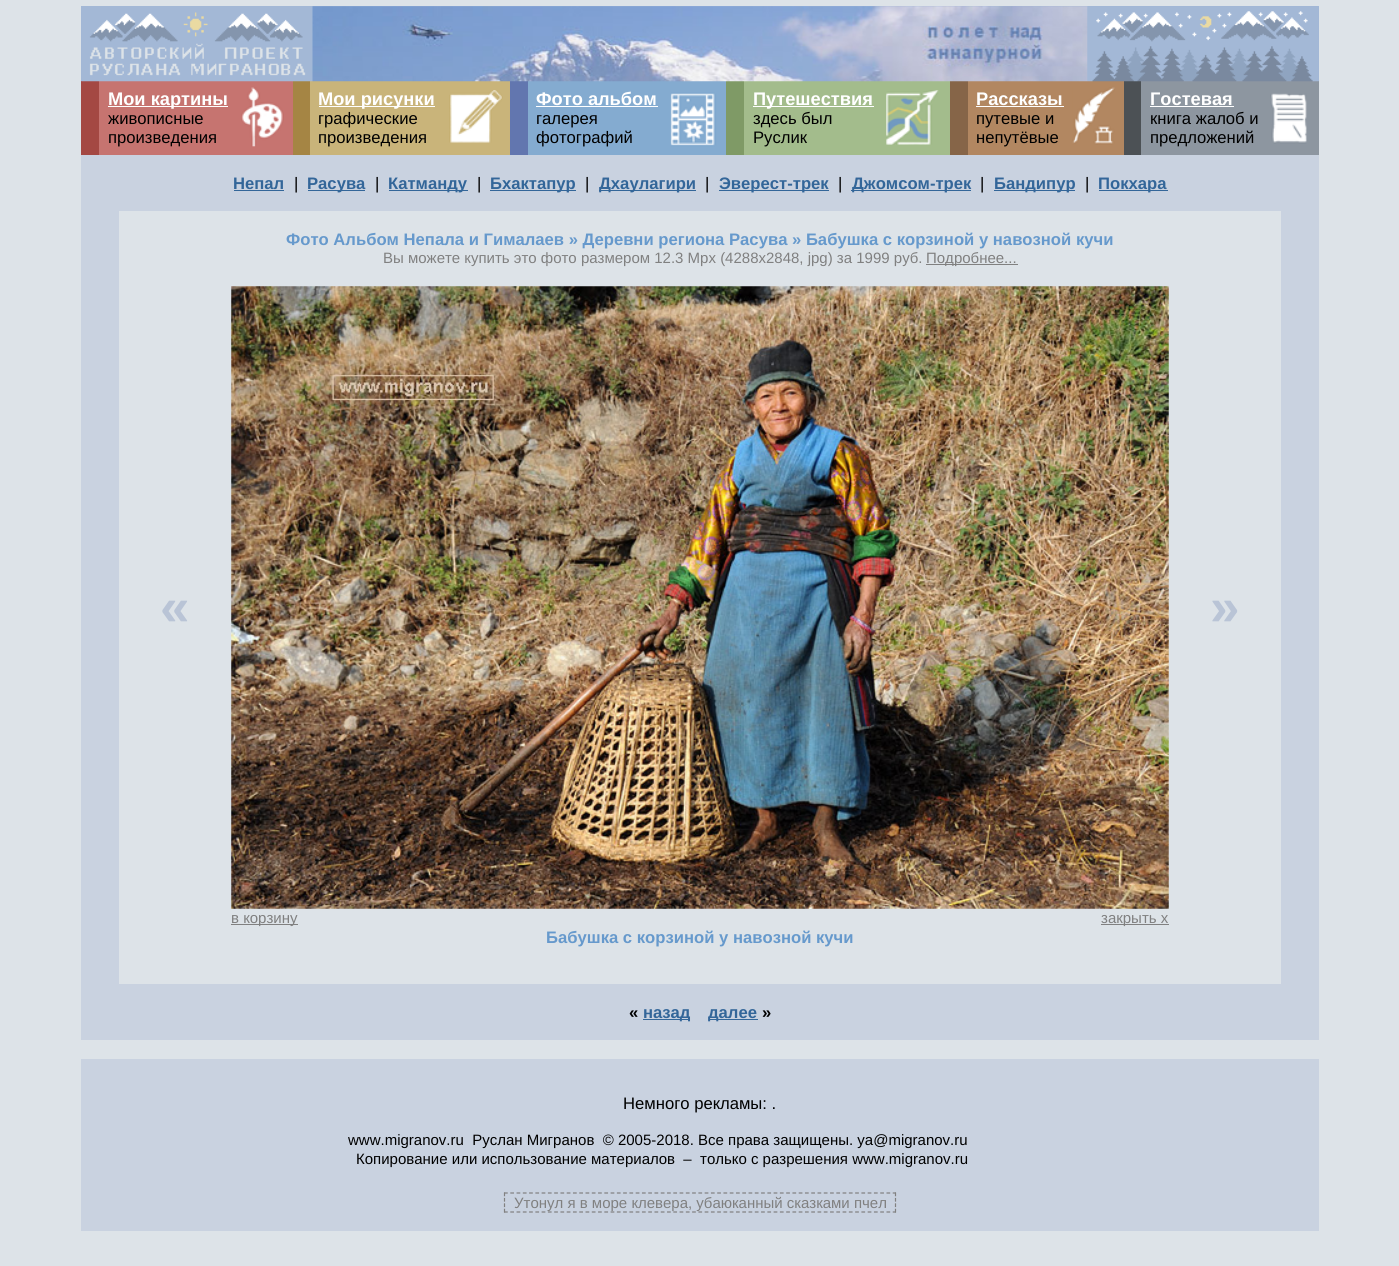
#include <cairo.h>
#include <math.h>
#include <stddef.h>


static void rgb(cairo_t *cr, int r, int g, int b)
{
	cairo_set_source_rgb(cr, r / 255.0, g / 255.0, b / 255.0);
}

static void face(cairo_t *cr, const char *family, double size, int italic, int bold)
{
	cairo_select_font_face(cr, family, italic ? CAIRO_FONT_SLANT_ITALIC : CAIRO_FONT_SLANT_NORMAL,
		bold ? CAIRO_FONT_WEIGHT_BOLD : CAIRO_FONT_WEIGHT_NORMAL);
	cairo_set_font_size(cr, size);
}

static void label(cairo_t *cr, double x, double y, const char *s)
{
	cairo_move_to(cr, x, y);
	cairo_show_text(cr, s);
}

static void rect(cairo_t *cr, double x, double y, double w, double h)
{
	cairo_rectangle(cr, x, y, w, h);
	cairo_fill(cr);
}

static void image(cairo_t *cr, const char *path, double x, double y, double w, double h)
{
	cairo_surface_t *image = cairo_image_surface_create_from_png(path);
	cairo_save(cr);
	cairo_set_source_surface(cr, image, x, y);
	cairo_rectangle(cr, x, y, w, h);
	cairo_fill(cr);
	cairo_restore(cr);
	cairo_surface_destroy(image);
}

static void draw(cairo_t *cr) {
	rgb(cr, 221, 227, 232);
	cairo_paint(cr);
	rgb(cr, 201, 210, 224);
	rect(cr, 81, 155, 1238, 56);
	rgb(cr, 163, 184, 214);
	rect(cr, 81, 6, 1238, 75);
	rgb(cr, 164, 72, 67);
	rect(cr, 81, 81, 18, 74);
	rgb(cr, 198, 116, 112);
	rect(cr, 99, 81, 194, 74);
	rgb(cr, 165, 133, 68);
	rect(cr, 293, 81, 17, 74);
	rgb(cr, 201, 180, 122);
	rect(cr, 310, 81, 200, 74);
	image(cr, "image0.png", 81, 12, 232, 70);
	rgb(cr, 98, 118, 175);
	rect(cr, 510, 81, 18, 74);
	rgb(cr, 132, 171, 208);
	rect(cr, 528, 81, 198, 74);
	image(cr, "image5.png", 670, 81, 56, 74);
	rgb(cr, 127, 154, 102);
	rect(cr, 726, 81, 18, 74);
	rgb(cr, 163, 188, 140);
	rect(cr, 744, 81, 206, 74);
	rgb(cr, 134, 101, 72);
	rect(cr, 950, 81, 18, 74);
	rgb(cr, 178, 135, 97);
	rect(cr, 968, 81, 156, 74);
	image(cr, "image1.png", 312, 6, 776, 76);
	rgb(cr, 76, 81, 85);
	rect(cr, 1124, 81, 17, 74);
	rgb(cr, 141, 150, 160);
	rect(cr, 1141, 81, 178, 74);
	image(cr, "image2.png", 1087, 6, 232, 76);
	rgb(cr, 255, 255, 255);
	rect(cr, 108, 106, 120, 1);
	face(cr, "Liberation Sans", 18.25, 0, 1);
	label(cr, 108, 105, "Мои картины");
	face(cr, "Liberation Sans", 16.65, 0, 0);
	rgb(cr, 0, 0, 0);
	label(cr, 108, 124, "живописные");
	label(cr, 108, 143, "произведения");
	image(cr, "image3.png", 241, 87, 43, 60);
	rgb(cr, 255, 255, 255);
	rect(cr, 319, 106, 116, 1);
	face(cr, "Liberation Sans", 18.25, 0, 1);
	label(cr, 318, 105, "Мои рисунки");
	face(cr, "Liberation Sans", 16.65, 0, 0);
	rgb(cr, 0, 0, 0);
	label(cr, 318, 124, "графические");
	label(cr, 318, 143, "произведения");
	image(cr, "image4.png", 449, 90, 54, 53);
	face(cr, "Liberation Sans", 18.25, 0, 1);
	rgb(cr, 255, 255, 255);
	label(cr, 536, 105, "Фото альбом");
	rect(cr, 536, 106, 122, 1);
	face(cr, "Liberation Sans", 16.65, 0, 0);
	rgb(cr, 0, 0, 0);
	label(cr, 536, 124, "галерея");
	label(cr, 536, 143, "фотографий");
	rgb(cr, 255, 255, 255);
	rect(cr, 753, 106, 121, 1);
	face(cr, "Liberation Sans", 18.25, 0, 1);
	label(cr, 753, 105, "Путешествия");
	face(cr, "Liberation Sans", 16.65, 0, 0);
	rgb(cr, 0, 0, 0);
	label(cr, 753, 124, "здесь был");
	label(cr, 753, 143, "Руслик");
	image(cr, "image6.png", 886, 90, 53, 55);
	face(cr, "Liberation Sans", 18.25, 0, 1);
	rgb(cr, 255, 255, 255);
	label(cr, 976, 105, "Рассказы");
	rect(cr, 976, 106, 88, 1);
	face(cr, "Liberation Sans", 16.65, 0, 0);
	rgb(cr, 0, 0, 0);
	label(cr, 976, 124, "путевые и");
	label(cr, 976, 143, "непутёвые");
	image(cr, "image7.png", 1072, 87, 43, 58);
	face(cr, "Liberation Sans", 18.25, 0, 1);
	rgb(cr, 255, 255, 255);
	label(cr, 1150, 105, "Гостевая");
	rect(cr, 1150, 106, 84, 1);
	face(cr, "Liberation Sans", 16.65, 0, 0);
	rgb(cr, 0, 0, 0);
	label(cr, 1150, 124, "книга жалоб и");
	label(cr, 1150, 143, "предложений");
	image(cr, "image8.png", 1270, 93, 37, 51);
	face(cr, "Liberation Sans", 16.65, 0, 1);
	rgb(cr, 51, 102, 153);
	label(cr, 233, 189, "Непал");
	rect(cr, 234, 190, 50, 1);
	face(cr, "Liberation Sans", 16.65, 0, 0);
	rgb(cr, 0, 0, 0);
	label(cr, 294, 189, "|");
	rgb(cr, 51, 102, 153);
	rect(cr, 308, 190, 57, 1);
	face(cr, "Liberation Sans", 16.65, 0, 1);
	label(cr, 307, 189, "Расува");
	face(cr, "Liberation Sans", 16.65, 0, 0);
	rgb(cr, 0, 0, 0);
	label(cr, 375, 189, "|");
	rgb(cr, 51, 102, 153);
	rect(cr, 389, 190, 79, 1);
	face(cr, "Liberation Sans", 16.65, 0, 1);
	label(cr, 388, 189, "Катманду");
	face(cr, "Liberation Sans", 16.65, 0, 0);
	rgb(cr, 0, 0, 0);
	label(cr, 477, 189, "|");
	rgb(cr, 51, 102, 153);
	rect(cr, 490, 190, 86, 1);
	face(cr, "Liberation Sans", 16.65, 0, 1);
	label(cr, 490, 189, "Бхактапур");
	face(cr, "Liberation Sans", 16.65, 0, 0);
	rgb(cr, 0, 0, 0);
	label(cr, 585, 189, "|");
	rgb(cr, 51, 102, 153);
	rect(cr, 599, 190, 97, 1);
	face(cr, "Liberation Sans", 16.65, 0, 1);
	label(cr, 599, 189, "Дхаулагири");
	face(cr, "Liberation Sans", 16.65, 0, 0);
	rgb(cr, 0, 0, 0);
	label(cr, 705, 189, "|");
	rgb(cr, 51, 102, 153);
	rect(cr, 719, 190, 110, 1);
	face(cr, "Liberation Sans", 16.65, 0, 1);
	label(cr, 719, 189, "Эверест-трек");
	face(cr, "Liberation Sans", 16.65, 0, 0);
	rgb(cr, 0, 0, 0);
	label(cr, 838, 189, "|");
	rgb(cr, 51, 102, 153);
	rect(cr, 851, 190, 120, 1);
	face(cr, "Liberation Sans", 16.65, 0, 1);
	label(cr, 852, 189, "Джомсом-трек");
	face(cr, "Liberation Sans", 16.65, 0, 0);
	rgb(cr, 0, 0, 0);
	label(cr, 980, 189, "|");
	rgb(cr, 51, 102, 153);
	rect(cr, 994, 190, 81, 1);
	face(cr, "Liberation Sans", 16.65, 0, 1);
	label(cr, 994, 189, "Бандипур");
	face(cr, "Liberation Sans", 16.65, 0, 0);
	rgb(cr, 0, 0, 0);
	label(cr, 1085, 189, "|");
	rgb(cr, 51, 102, 153);
	rect(cr, 1099, 190, 69, 1);
	face(cr, "Liberation Sans", 16.65, 0, 1);
	label(cr, 1098, 189, "Покхара");
	rgb(cr, 201, 210, 224);
	rect(cr, 81, 211, 38, 773);
	rgb(cr, 102, 153, 204);
	label(cr, 286, 245, "Фото Альбом Непала и Гималаев » Деревни региона Расува » Бабушка с корзиной у навозной кучи");
	face(cr, "Liberation Sans", 15, 0, 0);
	rgb(cr, 128, 128, 128);
	label(cr, 383, 263, "Вы можете купить это фото размером 12.3 Mpx (4288x2848, jpg) за 1999 руб.");
	rect(cr, 926, 264, 92, 1);
	label(cr, 926, 263, "Подробнее...");
	rgb(cr, 201, 210, 224);
	rect(cr, 1281, 211, 38, 773);
	face(cr, "Liberation Sans", 53, 0, 1);
	rgb(cr, 185, 196, 214);
	label(cr, 160, 625, "«");
	label(cr, 1210, 625, "»");
	image(cr, "image9.png", 231, 286, 938, 623);
	rgb(cr, 128, 128, 128);
	rect(cr, 231, 924, 67, 1);
	face(cr, "Liberation Sans", 15, 0, 0);
	label(cr, 231, 923, "в корзину");
	rect(cr, 1101, 924, 68, 1);
	label(cr, 1101, 923, "закрыть x");
	face(cr, "Liberation Sans", 16.65, 0, 1);
	rgb(cr, 102, 153, 204);
	label(cr, 546, 943, "Бабушка с корзиной у навозной кучи");
	rgb(cr, 201, 210, 224);
	rect(cr, 81, 984, 1238, 56);
	rgb(cr, 0, 0, 0);
	label(cr, 629, 1018, "«");
	rgb(cr, 51, 102, 153);
	rect(cr, 643, 1019, 47, 1);
	label(cr, 643, 1018, "назад");
	rect(cr, 709, 1019, 49, 1);
	label(cr, 708, 1018, "далее");
	rgb(cr, 0, 0, 0);
	label(cr, 762, 1018, "»");
	rgb(cr, 201, 210, 224);
	rect(cr, 81, 1059, 1238, 172);
	face(cr, "Liberation Sans", 16.65, 0, 0);
	rgb(cr, 0, 0, 0);
	label(cr, 623, 1109, "Немного рекламы: .");
	face(cr, "Liberation Sans", 15, 0, 0);
	label(cr, 348, 1145, "www.migranov.ru  Руслан Мигранов  © 2005-2018. Все права защищены. ya@migranov.ru");
	label(cr, 356, 1164, "Копирование или использование материалов  –  только с разрешения www.migranov.ru");
	cairo_new_path(cr);
	cairo_move_to(cr, 504, 1193);
	cairo_line_to(cr, 896, 1193);
	rgb(cr, 128, 128, 128);
	cairo_set_line_width(cr, 1.2);
	cairo_set_dash(cr, (double[]){3.75, 2.52}, 2, 0);
	cairo_stroke(cr);
	cairo_new_path(cr);
	cairo_move_to(cr, 895.5, 1192.5);
	cairo_line_to(cr, 895.5, 1212.5);
	cairo_set_dash(cr, (double[]){3.75, 1.66}, 2, 0);
	cairo_stroke(cr);
	cairo_new_path(cr);
	cairo_move_to(cr, 504, 1212);
	cairo_line_to(cr, 896, 1212);
	cairo_set_dash(cr, (double[]){3.75, 2.52}, 2, 0);
	cairo_stroke(cr);
	label(cr, 514, 1208, "Утонул я в море клевера, убаюканный сказками пчел");
	cairo_new_path(cr);
	cairo_move_to(cr, 504.5, 1192.5);
	cairo_line_to(cr, 504.5, 1212.5);
	cairo_set_dash(cr, (double[]){3.75, 1.66}, 2, 0);
	cairo_stroke(cr);
}

int main(void) {
	cairo_surface_t *surface = cairo_image_surface_create(CAIRO_FORMAT_RGB24, 1399, 1266);
	cairo_t *cr = cairo_create(surface);
	cairo_font_options_t *options = cairo_font_options_create();
	cairo_font_options_set_hint_metrics(options, CAIRO_HINT_METRICS_OFF);
	cairo_font_options_set_hint_style(options, CAIRO_HINT_STYLE_NONE);
	cairo_set_font_options(cr, options);
	cairo_set_miter_limit(cr, 4);
	draw(cr);
	cairo_surface_write_to_png(surface, "render.png");
	cairo_font_options_destroy(options);
	cairo_destroy(cr);
	cairo_surface_destroy(surface);
	return 0;
}
